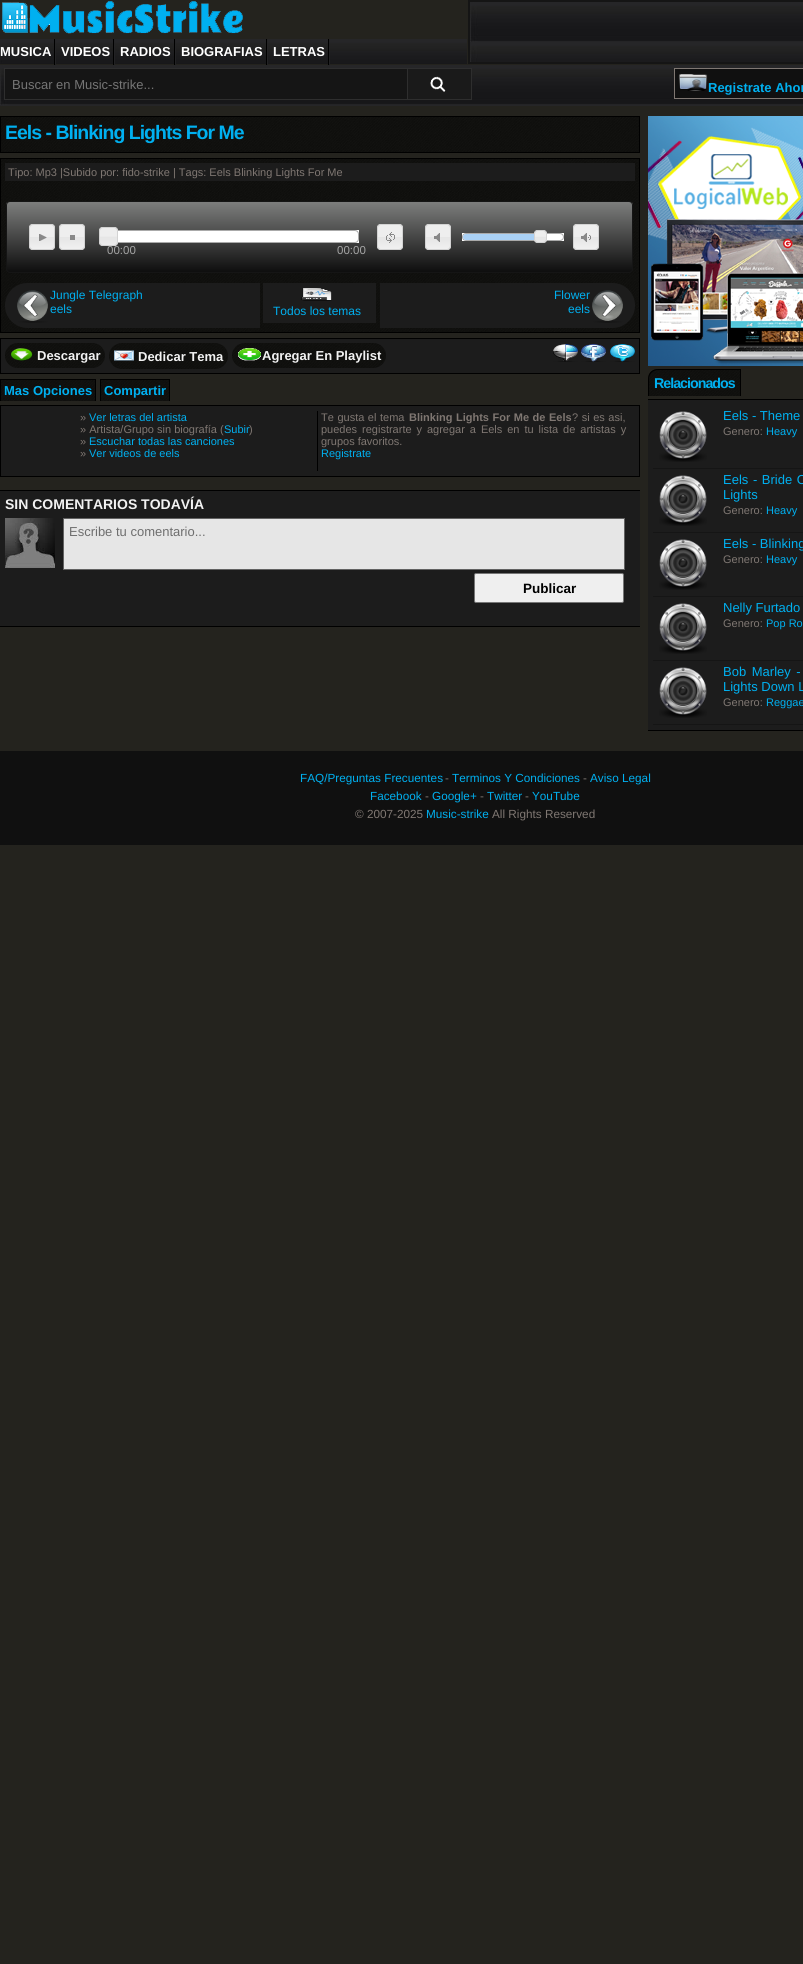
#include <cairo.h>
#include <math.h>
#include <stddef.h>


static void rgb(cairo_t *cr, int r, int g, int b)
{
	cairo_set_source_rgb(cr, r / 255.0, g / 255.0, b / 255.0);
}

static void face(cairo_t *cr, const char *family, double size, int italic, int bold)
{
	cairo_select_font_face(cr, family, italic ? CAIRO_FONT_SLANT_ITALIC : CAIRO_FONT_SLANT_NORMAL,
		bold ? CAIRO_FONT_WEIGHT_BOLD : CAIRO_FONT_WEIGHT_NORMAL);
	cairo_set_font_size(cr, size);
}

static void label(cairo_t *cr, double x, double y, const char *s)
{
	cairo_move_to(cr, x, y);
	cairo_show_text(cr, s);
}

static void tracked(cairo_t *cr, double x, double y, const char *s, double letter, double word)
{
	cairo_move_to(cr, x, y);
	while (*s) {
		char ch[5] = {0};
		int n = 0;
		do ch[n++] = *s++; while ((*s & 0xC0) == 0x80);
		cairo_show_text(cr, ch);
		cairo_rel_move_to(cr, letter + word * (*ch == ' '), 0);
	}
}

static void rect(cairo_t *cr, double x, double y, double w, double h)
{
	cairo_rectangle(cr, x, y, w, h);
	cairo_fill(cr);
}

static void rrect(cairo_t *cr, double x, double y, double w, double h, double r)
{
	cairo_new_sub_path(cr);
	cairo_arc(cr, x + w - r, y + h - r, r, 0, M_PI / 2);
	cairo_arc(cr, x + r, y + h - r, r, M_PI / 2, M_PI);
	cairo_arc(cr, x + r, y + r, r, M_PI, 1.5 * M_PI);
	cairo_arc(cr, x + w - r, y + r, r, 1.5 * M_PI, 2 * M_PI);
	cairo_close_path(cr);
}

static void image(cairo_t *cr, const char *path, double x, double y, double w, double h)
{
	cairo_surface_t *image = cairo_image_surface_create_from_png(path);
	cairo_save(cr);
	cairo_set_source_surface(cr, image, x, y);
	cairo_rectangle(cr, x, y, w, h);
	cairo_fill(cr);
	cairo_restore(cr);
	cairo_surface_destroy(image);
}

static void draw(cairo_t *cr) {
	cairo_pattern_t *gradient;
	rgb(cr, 36, 35, 30);
	cairo_paint(cr);
	image(cr, "image0.png", 2, 1, 241, 33);
	image(cr, "image1.png", 470, 2, 333, 60);
	cairo_rectangle(cr, 469, 1, 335, 62);
	rgb(cr, 21, 21, 21);
	cairo_stroke(cr);
	image(cr, "image2.png", 0, 39, 467, 25);
	image(cr, "image3.png", 54, 39, 2, 26);
	face(cr, "Liberation Sans", 13, 0, 1);
	rgb(cr, 255, 255, 255);
	label(cr, 0, 56, "MUSICA");
	image(cr, "image3.png", 113, 39, 2, 26);
	label(cr, 61, 56, "VIDEOS");
	image(cr, "image3.png", 174, 39, 2, 26);
	label(cr, 120, 56, "RADIOS");
	image(cr, "image3.png", 266, 39, 2, 26);
	label(cr, 181, 56, "BIOGRAFIAS");
	image(cr, "image3.png", 328, 39, 2, 26);
	label(cr, 273, 56, "LETRAS");
	image(cr, "image4.png", 0, 65, 803, 41);
	rgb(cr, 21, 21, 21);
	rect(cr, 5, 69, 402, 30);
	cairo_rectangle(cr, 4.5, 68.5, 404, 31);
	rgb(cr, 46, 46, 46);
	cairo_set_line_width(cr, 1);
	cairo_stroke(cr);
	face(cr, "Liberation Sans", 13, 0, 0);
	rgb(cr, 117, 117, 117);
	label(cr, 12, 89, "Buscar en Music-strike...");
	rgb(cr, 26, 26, 26);
	rect(cr, 408, 69, 63, 30);
	image(cr, "image5.png", 430, 76, 16, 16);
	cairo_rectangle(cr, 407.5, 68.5, 64, 31);
	rgb(cr, 46, 46, 46);
	cairo_stroke(cr);
	rgb(cr, 16, 16, 16);
	cairo_rectangle(cr, 674.5, 68.5, 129, 30);
	cairo_fill_preserve(cr);
	rgb(cr, 127, 119, 114);
	cairo_stroke(cr);
	image(cr, "image6.png", 678, 74, 30, 17);
	face(cr, "Liberation Sans", 13, 0, 1);
	rgb(cr, 0, 176, 240);
	label(cr, 708, 92, "Registrate Ahor");
	image(cr, "image7.png", 1, 117, 638, 35);
	cairo_rectangle(cr, 0.5, 116.5, 639, 36);
	rgb(cr, 0, 0, 0);
	cairo_stroke(cr);
	face(cr, "Liberation Sans", 19.5, 0, 1);
	rgb(cr, 0, 176, 240);
	tracked(cr, 5, 139, "Eels - Blinking Lights For Me", -1, 0);
	image(cr, "image8.png", 1, 159, 638, 173);
	cairo_rectangle(cr, 0.5, 158.5, 639, 174);
	rgb(cr, 0, 0, 0);
	cairo_stroke(cr);
	rgb(cr, 28, 28, 28);
	rect(cr, 5, 163, 630, 18);
	face(cr, "Liberation Sans", 11, 0, 0);
	rgb(cr, 127, 119, 114);
	label(cr, 8, 176, "Tipo: Mp3 |Subido por: fido-strike | Tags: Eels Blinking Lights For Me");
	cairo_save(cr);
	rrect(cr, 6, 201, 627, 72, 4);
	cairo_clip(cr);
	gradient = cairo_pattern_create_linear(320, 202, 320, 272);
	cairo_pattern_add_color_stop_rgba(gradient, 0, 0.49, 0.494, 0.49, 1);
	cairo_pattern_add_color_stop_rgba(gradient, 1, 0.055, 0.055, 0.055, 1);
	cairo_set_source(cr, gradient);
	cairo_pattern_destroy(gradient);
	rect(cr, 6, 202, 627, 70);
	cairo_restore(cr);
	rrect(cr, 6.5, 201.5, 626, 71, 3.5);
	rgb(cr, 21, 21, 21);
	cairo_stroke(cr);
	image(cr, "image9.png", 29, 224, 26, 26);
	rrect(cr, 29.5, 224.5, 25, 25, 3.5);
	rgb(cr, 211, 211, 211);
	cairo_stroke(cr);
	image(cr, "image10.png", 39, 234, 8, 7);
	image(cr, "image9.png", 59, 224, 26, 26);
	rrect(cr, 59.5, 224.5, 25, 25, 3.5);
	cairo_stroke(cr);
	rgb(cr, 136, 136, 136);
	rect(cr, 70, 235, 5, 5);
	image(cr, "image9.png", 377, 224, 26, 26);
	rrect(cr, 377.5, 224.5, 25, 25, 3.5);
	rgb(cr, 211, 211, 211);
	cairo_stroke(cr);
	image(cr, "image11.png", 386, 232, 9, 11);
	image(cr, "image9.png", 425, 224, 26, 26);
	rrect(cr, 425.5, 224.5, 25, 25, 3.5);
	cairo_stroke(cr);
	image(cr, "image12.png", 434, 233, 6, 9);
	image(cr, "image9.png", 573, 224, 26, 26);
	rrect(cr, 573.5, 224.5, 25, 25, 3.5);
	cairo_stroke(cr);
	image(cr, "image13.png", 581, 233, 10, 9);
	rgb(cr, 255, 255, 255);
	rect(cr, 118, 230, 241, 13);
	rrect(cr, 107.5, 230.5, 251, 12, 3.5);
	rgb(cr, 170, 170, 170);
	cairo_stroke(cr);
	image(cr, "image14.png", 99, 227, 19, 19);
	rrect(cr, 99.5, 227.5, 18, 18, 3.5);
	rgb(cr, 211, 211, 211);
	cairo_stroke(cr);
	rgb(cr, 255, 255, 255);
	rect(cr, 462, 233, 102, 8);
	rrect(cr, 462.5, 233.5, 101, 7, 3.5);
	rgb(cr, 170, 170, 170);
	cairo_stroke(cr);
	rgb(cr, 169, 208, 245);
	rrect(cr, 463, 234, 80, 6, 3);
	cairo_fill(cr);
	image(cr, "image15.png", 534, 230, 13, 13);
	rrect(cr, 534.5, 230.5, 12, 12, 3.5);
	rgb(cr, 211, 211, 211);
	cairo_stroke(cr);
	face(cr, "Liberation Sans", 11.5, 0, 0);
	rgb(cr, 164, 164, 164);
	label(cr, 107, 254, "00:00");
	label(cr, 337, 254, "00:00");
	rgb(cr, 28, 28, 28);
	cairo_new_path(cr);
	cairo_move_to(cr, 27.5, 283);
	cairo_line_to(cr, 260, 283);
	cairo_line_to(cr, 260, 328);
	cairo_line_to(cr, 27.5, 328);
	cairo_curve_to(cr, 15, 328, 5, 318, 5, 305.5);
	cairo_curve_to(cr, 5, 293, 15, 283, 27.5, 283);
	cairo_close_path(cr);
	cairo_fill(cr);
	image(cr, "image16.png", 17, 290, 31, 33);
	face(cr, "Liberation Sans", 12, 0, 0);
	rgb(cr, 0, 176, 240);
	label(cr, 50, 299, "Jungle Telegraph");
	label(cr, 50, 313, "eels");
	rgb(cr, 28, 28, 28);
	rect(cr, 263, 283, 113, 40);
	image(cr, "image17.png", 301, 288, 31, 13);
	rgb(cr, 0, 176, 240);
	label(cr, 273, 315, "Todos los temas");
	rgb(cr, 28, 28, 28);
	cairo_new_path(cr);
	cairo_move_to(cr, 380, 283);
	cairo_line_to(cr, 612.5, 283);
	cairo_curve_to(cr, 625, 283, 635, 293, 635, 305.5);
	cairo_curve_to(cr, 635, 318, 625, 328, 612.5, 328);
	cairo_line_to(cr, 380, 328);
	cairo_close_path(cr);
	cairo_fill(cr);
	rgb(cr, 0, 176, 240);
	label(cr, 554, 299, "Flower");
	image(cr, "image18.png", 592, 290, 31, 33);
	label(cr, 568, 313, "eels");
	rgb(cr, 28, 28, 28);
	cairo_rectangle(cr, 0.5, 338.5, 639, 35);
	cairo_fill_preserve(cr);
	rgb(cr, 0, 0, 0);
	cairo_stroke(cr);
	image(cr, "image19.png", 5, 343, 100, 25);
	image(cr, "image20.png", 11, 348, 22, 13);
	face(cr, "Liberation Sans", 13, 0, 1);
	rgb(cr, 242, 242, 242);
	label(cr, 37, 360, "Descargar");
	image(cr, "image21.png", 109, 343, 119, 26);
	image(cr, "image22.png", 114, 350, 20, 11);
	label(cr, 138, 361, "Dedicar Tema");
	image(cr, "image23.png", 232, 343, 154, 25);
	image(cr, "image24.png", 238, 348, 23, 13);
	label(cr, 262, 360, "Agregar En Playlist");
	image(cr, "image25.png", 553, 344, 25, 18);
	image(cr, "image26.png", 581, 344, 25, 18);
	image(cr, "image27.png", 610, 344, 25, 18);
	image(cr, "image28.png", 1, 380, 94, 21);
	rgb(cr, 0, 0, 0);
	rect(cr, 0, 379, 96, 1);
	rect(cr, 95, 379, 1, 22);
	rect(cr, 0, 379, 1, 22);
	rgb(cr, 0, 176, 240);
	label(cr, 4, 395, "Mas Opciones");
	image(cr, "image29.png", 101, 380, 68, 21);
	rgb(cr, 0, 0, 0);
	rect(cr, 100, 379, 70, 1);
	rect(cr, 169, 379, 1, 22);
	rect(cr, 100, 379, 1, 22);
	rgb(cr, 0, 176, 240);
	label(cr, 104, 395, "Compartir");
	rgb(cr, 28, 28, 28);
	cairo_rectangle(cr, 0.5, 405.5, 639, 71);
	cairo_fill_preserve(cr);
	rgb(cr, 0, 0, 0);
	cairo_stroke(cr);
	rect(cr, 317, 411, 1, 60);
	face(cr, "Liberation Sans", 11, 0, 0);
	rgb(cr, 127, 119, 114);
	label(cr, 80, 421, "»");
	rgb(cr, 0, 176, 240);
	label(cr, 89, 421, "Ver letras del artista");
	rgb(cr, 127, 119, 114);
	label(cr, 80, 433, "» Artista/Grupo sin biografía (");
	rgb(cr, 0, 176, 240);
	label(cr, 224, 433, "Subir");
	rgb(cr, 127, 119, 114);
	label(cr, 249, 433, ")");
	label(cr, 80, 445, "»");
	rgb(cr, 0, 176, 240);
	label(cr, 89, 445, "Escuchar todas las canciones");
	rgb(cr, 127, 119, 114);
	label(cr, 80, 457, "»");
	rgb(cr, 0, 176, 240);
	label(cr, 89, 457, "Ver videos de eels");
	rgb(cr, 127, 119, 114);
	tracked(cr, 321, 421, "Te gusta el tema", 0, 0.5);
	face(cr, "Liberation Sans", 11, 0, 1);
	tracked(cr, 409, 421, "Blinking Lights For Me de Eels", 0, 0.5);
	face(cr, "Liberation Sans", 11, 0, 0);
	tracked(cr, 572, 421, "? si es asi,", 0, 0.5);
	tracked(cr, 321, 433, "puedes registrarte y agregar a Eels en tu lista de artistas y", 0, 1.9);
	label(cr, 321, 445, "grupos favoritos.");
	rgb(cr, 0, 176, 240);
	label(cr, 321, 457, "Registrate");
	rgb(cr, 28, 28, 28);
	rect(cr, 0, 491, 640, 135);
	rgb(cr, 0, 0, 0);
	rect(cr, 0, 490, 640, 1);
	rect(cr, 0, 626, 640, 1);
	face(cr, "Liberation Sans", 14, 0, 1);
	rgb(cr, 242, 242, 242);
	label(cr, 5, 509, "SIN COMENTARIOS TODAVÍA");
	image(cr, "image30.png", 5, 518, 50, 50);
	rgb(cr, 230, 230, 230);
	cairo_rectangle(cr, 63.5, 518.5, 561, 51);
	cairo_fill_preserve(cr);
	rgb(cr, 98, 98, 98);
	cairo_stroke(cr);
	face(cr, "Liberation Sans", 13, 0, 0);
	rgb(cr, 110, 110, 110);
	label(cr, 69, 536, "Escribe tu comentario...");
	rgb(cr, 239, 239, 239);
	rrect(cr, 474.5, 573.5, 149, 29, 1.5);
	cairo_fill_preserve(cr);
	rgb(cr, 118, 118, 118);
	cairo_stroke(cr);
	face(cr, "Liberation Sans", 13.5, 0, 1);
	rgb(cr, 0, 0, 0);
	label(cr, 523, 593, "Publicar");
	image(cr, "image31.png", 648, 116, 155, 250);
	image(cr, "image32.png", 648, 369, 92, 27);
	cairo_set_fill_rule(cr, CAIRO_FILL_RULE_EVEN_ODD);
	cairo_new_path(cr);
	cairo_move_to(cr, 658, 369);
	cairo_line_to(cr, 741, 369);
	cairo_line_to(cr, 741, 396);
	cairo_line_to(cr, 648, 396);
	cairo_line_to(cr, 648, 379);
	cairo_curve_to(cr, 648, 373, 652, 369, 658, 369);
	cairo_close_path(cr);
	cairo_move_to(cr, 658, 370);
	cairo_line_to(cr, 740, 370);
	cairo_line_to(cr, 740, 396);
	cairo_line_to(cr, 649, 396);
	cairo_line_to(cr, 649, 379);
	cairo_curve_to(cr, 649, 374, 653, 370, 658, 370);
	cairo_close_path(cr);
	cairo_fill(cr);
	face(cr, "Liberation Sans", 14.25, 0, 1);
	rgb(cr, 0, 176, 240);
	tracked(cr, 654, 388, "Relacionados", -1, 0);
	rgb(cr, 28, 28, 28);
	rect(cr, 648, 400, 155, 330);
	rgb(cr, 0, 0, 0);
	rect(cr, 648, 399, 155, 1);
	rect(cr, 648, 730, 155, 1);
	rgb(cr, 21, 21, 21);
	rect(cr, 653, 468, 150, 1);
	image(cr, "image33.png", 659, 411, 48, 51);
	face(cr, "Liberation Sans", 13, 0, 0);
	rgb(cr, 0, 176, 240);
	label(cr, 723, 420, "Eels - Theme");
	face(cr, "Liberation Sans", 11, 0, 0);
	rgb(cr, 127, 119, 114);
	label(cr, 723, 435, "Genero:");
	rgb(cr, 0, 176, 240);
	label(cr, 766, 435, "Heavy");
	rgb(cr, 21, 21, 21);
	rect(cr, 653, 532, 150, 1);
	image(cr, "image33.png", 659, 475, 48, 51);
	face(cr, "Liberation Sans", 13, 0, 0);
	rgb(cr, 0, 176, 240);
	tracked(cr, 723, 484, "Eels - Bride O", 0, 1);
	label(cr, 723, 499, "Lights");
	face(cr, "Liberation Sans", 11, 0, 0);
	rgb(cr, 127, 119, 114);
	label(cr, 723, 514, "Genero:");
	rgb(cr, 0, 176, 240);
	label(cr, 766, 514, "Heavy");
	rgb(cr, 21, 21, 21);
	rect(cr, 653, 596, 150, 1);
	image(cr, "image34.png", 659, 539, 48, 51);
	face(cr, "Liberation Sans", 13, 0, 0);
	rgb(cr, 0, 176, 240);
	label(cr, 723, 548, "Eels - Blinking");
	face(cr, "Liberation Sans", 11, 0, 0);
	rgb(cr, 127, 119, 114);
	label(cr, 723, 563, "Genero:");
	rgb(cr, 0, 176, 240);
	label(cr, 766, 563, "Heavy");
	rgb(cr, 21, 21, 21);
	rect(cr, 653, 660, 150, 1);
	image(cr, "image33.png", 659, 603, 48, 51);
	face(cr, "Liberation Sans", 13, 0, 0);
	rgb(cr, 0, 176, 240);
	label(cr, 723, 612, "Nelly Furtado");
	face(cr, "Liberation Sans", 11, 0, 0);
	rgb(cr, 127, 119, 114);
	label(cr, 723, 627, "Genero:");
	rgb(cr, 0, 176, 240);
	label(cr, 766, 627, "Pop Ro");
	rgb(cr, 21, 21, 21);
	rect(cr, 653, 724, 150, 1);
	image(cr, "image33.png", 659, 667, 48, 51);
	face(cr, "Liberation Sans", 13, 0, 0);
	rgb(cr, 0, 176, 240);
	tracked(cr, 723, 676, "Bob Marley -", 0, 2);
	label(cr, 723, 691, "Lights Down L");
	face(cr, "Liberation Sans", 11, 0, 0);
	rgb(cr, 127, 119, 114);
	label(cr, 723, 706, "Genero:");
	rgb(cr, 0, 176, 240);
	label(cr, 766, 706, "Reggae");
	rgb(cr, 16, 16, 16);
	rect(cr, 0, 751, 803, 94);
	face(cr, "Liberation Sans", 11.75, 0, 0);
	rgb(cr, 0, 176, 240);
	label(cr, 300, 782, "FAQ/Preguntas Frecuentes");
	rgb(cr, 127, 119, 114);
	label(cr, 445, 782, "-");
	rgb(cr, 0, 176, 240);
	label(cr, 452, 782, "Terminos Y Condiciones");
	rgb(cr, 127, 119, 114);
	label(cr, 583, 782, "-");
	rgb(cr, 0, 176, 240);
	label(cr, 590, 782, "Aviso Legal");
	label(cr, 370, 800, "Facebook");
	rgb(cr, 127, 119, 114);
	label(cr, 425, 800, "-");
	rgb(cr, 0, 176, 240);
	label(cr, 432, 800, "Google+");
	rgb(cr, 127, 119, 114);
	label(cr, 480, 800, "-");
	rgb(cr, 0, 176, 240);
	label(cr, 487, 800, "Twitter");
	rgb(cr, 127, 119, 114);
	label(cr, 525, 800, "-");
	rgb(cr, 0, 176, 240);
	label(cr, 532, 800, "YouTube");
	rgb(cr, 127, 119, 114);
	label(cr, 355, 818, "© 2007-2025");
	rgb(cr, 0, 176, 240);
	label(cr, 426, 818, "Music-strike");
	rgb(cr, 127, 119, 114);
	label(cr, 492, 818, "All Rights Reserved");
}

int main(void) {
	cairo_surface_t *surface = cairo_image_surface_create(CAIRO_FORMAT_RGB24, 803, 1964);
	cairo_t *cr = cairo_create(surface);
	cairo_font_options_t *options = cairo_font_options_create();
	cairo_font_options_set_hint_metrics(options, CAIRO_HINT_METRICS_OFF);
	cairo_font_options_set_hint_style(options, CAIRO_HINT_STYLE_NONE);
	cairo_set_font_options(cr, options);
	cairo_set_miter_limit(cr, 4);
	draw(cr);
	cairo_surface_write_to_png(surface, "render.png");
	cairo_font_options_destroy(options);
	cairo_destroy(cr);
	cairo_surface_destroy(surface);
	return 0;
}
